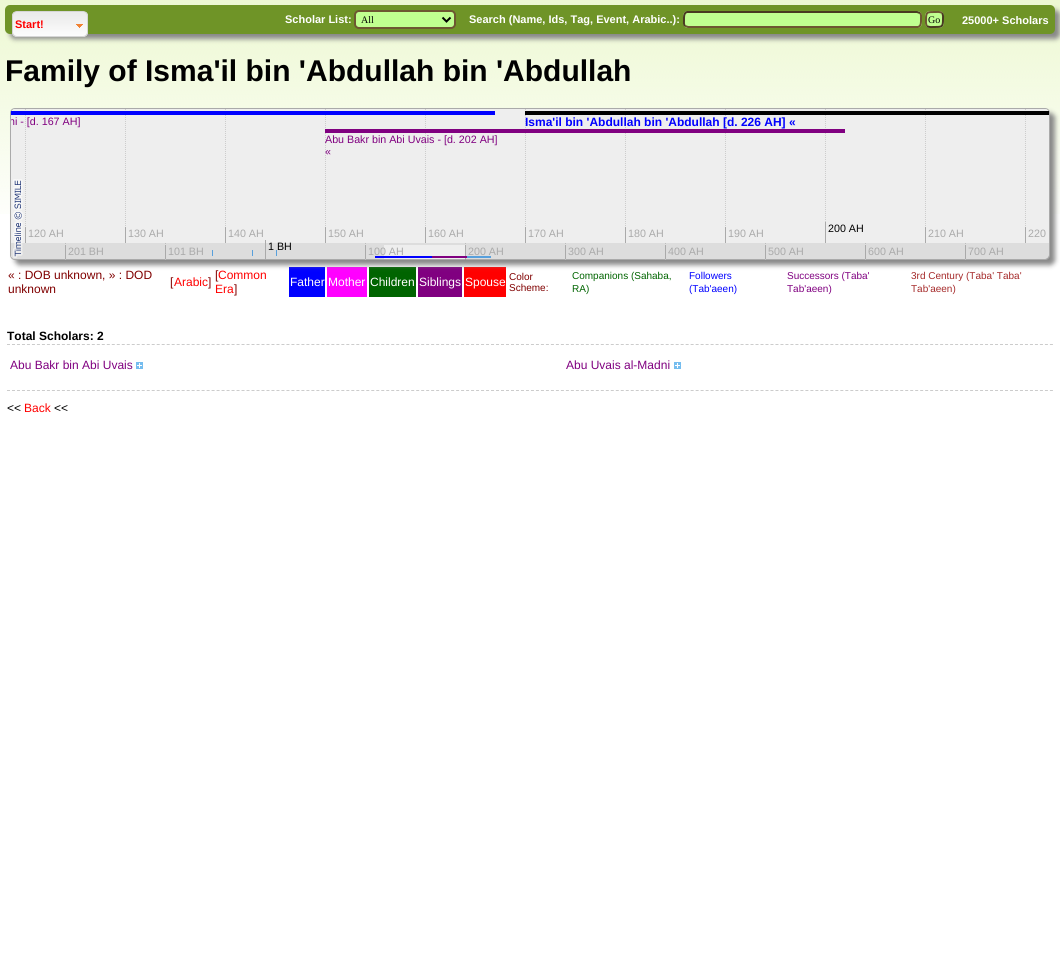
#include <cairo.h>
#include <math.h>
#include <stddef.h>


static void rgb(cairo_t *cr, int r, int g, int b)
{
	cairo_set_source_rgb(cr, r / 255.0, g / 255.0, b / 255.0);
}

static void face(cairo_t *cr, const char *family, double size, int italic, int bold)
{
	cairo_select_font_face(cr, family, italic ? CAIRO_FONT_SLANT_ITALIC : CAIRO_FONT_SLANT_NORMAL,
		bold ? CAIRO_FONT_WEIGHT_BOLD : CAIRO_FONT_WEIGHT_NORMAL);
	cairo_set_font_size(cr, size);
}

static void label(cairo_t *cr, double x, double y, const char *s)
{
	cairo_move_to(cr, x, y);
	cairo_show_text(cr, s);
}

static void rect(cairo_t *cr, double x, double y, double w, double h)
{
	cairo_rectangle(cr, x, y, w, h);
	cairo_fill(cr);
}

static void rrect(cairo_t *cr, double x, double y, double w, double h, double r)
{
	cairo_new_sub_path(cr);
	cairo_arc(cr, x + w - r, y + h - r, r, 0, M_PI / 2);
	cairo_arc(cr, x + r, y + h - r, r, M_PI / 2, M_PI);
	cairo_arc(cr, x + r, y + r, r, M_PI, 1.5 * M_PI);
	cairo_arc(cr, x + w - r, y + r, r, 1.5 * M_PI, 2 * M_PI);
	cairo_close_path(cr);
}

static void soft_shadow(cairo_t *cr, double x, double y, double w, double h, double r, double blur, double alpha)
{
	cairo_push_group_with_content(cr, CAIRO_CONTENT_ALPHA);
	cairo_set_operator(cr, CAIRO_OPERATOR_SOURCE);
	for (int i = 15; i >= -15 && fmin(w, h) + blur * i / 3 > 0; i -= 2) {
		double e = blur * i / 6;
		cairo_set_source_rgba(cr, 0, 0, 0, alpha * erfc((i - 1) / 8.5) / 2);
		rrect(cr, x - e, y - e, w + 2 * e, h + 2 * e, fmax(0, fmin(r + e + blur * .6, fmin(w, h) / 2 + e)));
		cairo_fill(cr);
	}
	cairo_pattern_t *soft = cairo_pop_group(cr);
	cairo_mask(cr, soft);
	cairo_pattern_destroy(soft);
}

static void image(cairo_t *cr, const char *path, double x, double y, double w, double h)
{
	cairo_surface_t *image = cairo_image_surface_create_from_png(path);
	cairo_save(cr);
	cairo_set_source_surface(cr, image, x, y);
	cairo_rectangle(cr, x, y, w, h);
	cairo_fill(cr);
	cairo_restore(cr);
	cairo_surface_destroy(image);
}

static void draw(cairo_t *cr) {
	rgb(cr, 255, 255, 255);
	cairo_paint(cr);
	image(cr, "image0.png", 0, 0, 1060, 214);
	rgb(cr, 136, 136, 136);
	soft_shadow(cr, 10, 10, 1050, 29, 5, 2.5, 1);
	rgb(cr, 111, 148, 39);
	rrect(cr, 5, 5, 1050, 29, 5);
	cairo_fill(cr);
	image(cr, "image1.png", 12, 12, 76, 25);
	rrect(cr, 12.5, 11.5, 75, 25, 4.5);
	rgb(cr, 214, 214, 214);
	cairo_set_line_width(cr, 1);
	cairo_stroke(cr);
	image(cr, "image2.png", 76, 24, 7, 4);
	face(cr, "Liberation Sans", 11, 0, 1);
	rgb(cr, 255, 0, 0);
	label(cr, 15, 28, "Start!");
	rgb(cr, 255, 255, 255);
	label(cr, 285, 23, "Scholar List:");
	rgb(cr, 192, 255, 144);
	rrect(cr, 355, 11, 100, 17, 4);
	cairo_fill_preserve(cr);
	rgb(cr, 109, 87, 49);
	cairo_set_line_width(cr, 2);
	cairo_stroke(cr);
	cairo_new_path(cr);
	cairo_move_to(cr, 442.5, 17.5);
	cairo_line_to(cr, 446.5, 21.5);
	cairo_line_to(cr, 450.5, 17.5);
	rgb(cr, 0, 0, 0);
	cairo_stroke(cr);
	face(cr, "Liberation Serif", 10, 0, 0);
	label(cr, 361, 23, "All");
	face(cr, "Liberation Sans", 11, 0, 1);
	rgb(cr, 255, 255, 255);
	label(cr, 469, 23, "Search (Name, Ids, Tag, Event, Arabic..):");
	rgb(cr, 192, 255, 144);
	rrect(cr, 683, 11, 239, 17, 5);
	cairo_fill(cr);
	cairo_new_path(cr);
	cairo_move_to(cr, 920, 13);
	cairo_curve_to(cr, 921.5, 14.5, 921, 17, 921, 19);
	cairo_curve_to(cr, 921, 21.5, 921.5, 26, 918, 27);
	cairo_line_to(cr, 688, 27);
	cairo_line_to(cr, 685, 26);
	rgb(cr, 109, 87, 49);
	cairo_stroke(cr);
	cairo_new_path(cr);
	cairo_move_to(cr, 685, 26);
	cairo_curve_to(cr, 683.5, 24.5, 684, 22, 684, 20);
	cairo_curve_to(cr, 684, 17.5, 683.5, 13, 687, 12);
	cairo_line_to(cr, 917, 12);
	cairo_line_to(cr, 920, 13);
	rgb(cr, 73, 58, 33);
	cairo_stroke(cr);
	rgb(cr, 192, 255, 144);
	rrect(cr, 925, 11, 19, 17, 5);
	cairo_fill(cr);
	cairo_new_path(cr);
	cairo_move_to(cr, 942, 13);
	cairo_curve_to(cr, 943.5, 15, 943, 17.5, 943, 19.5);
	cairo_curve_to(cr, 943, 27, 942, 27, 934.5, 27);
	cairo_curve_to(cr, 932, 27, 929, 27.5, 927, 26);
	rgb(cr, 73, 58, 33);
	cairo_stroke(cr);
	cairo_new_path(cr);
	cairo_move_to(cr, 927, 26);
	cairo_curve_to(cr, 925.5, 24, 926, 21.5, 926, 19.5);
	cairo_curve_to(cr, 926, 12, 927, 12, 934.5, 12);
	cairo_curve_to(cr, 937, 12, 940, 11.5, 942, 13);
	rgb(cr, 109, 87, 49);
	cairo_stroke(cr);
	face(cr, "Liberation Serif", 10, 0, 0);
	rgb(cr, 0, 0, 0);
	label(cr, 928, 23, "Go");
	face(cr, "Liberation Sans", 11, 0, 1);
	rgb(cr, 255, 255, 255);
	label(cr, 962, 24, "25000+ Scholars");
	face(cr, "Liberation Sans", 30, 0, 1);
	rgb(cr, 0, 0, 0);
	label(cr, 5, 81, "Family of Isma'il bin 'Abdullah bin 'Abdullah");
	rgb(cr, 0, 0, 255);
	rect(cr, 289, 267, 36, 30);
	rgb(cr, 255, 0, 255);
	rect(cr, 327, 267, 40, 30);
	rgb(cr, 0, 100, 0);
	rect(cr, 369, 267, 47, 30);
	rgb(cr, 128, 0, 128);
	rect(cr, 418, 267, 44, 30);
	rgb(cr, 255, 0, 0);
	rect(cr, 464, 267, 42, 30);
	rgb(cr, 136, 136, 136);
	soft_shadow(cr, 15, 113, 1040, 152, 5, 2.5, 1);
	rrect(cr, 10.5, 108.5, 1039, 151, 4.5);
	rgb(cr, 170, 170, 170);
	cairo_set_line_width(cr, 1);
	cairo_stroke(cr);
	rgb(cr, 238, 238, 238);
	cairo_new_path(cr);
	cairo_move_to(cr, 15, 109);
	cairo_line_to(cr, 1045, 109);
	cairo_curve_to(cr, 1047, 109, 1049, 111, 1049, 113);
	cairo_line_to(cr, 1049, 243);
	cairo_line_to(cr, 11, 243);
	cairo_line_to(cr, 11, 113);
	cairo_curve_to(cr, 11, 111, 13, 109, 15, 109);
	cairo_close_path(cr);
	cairo_fill(cr);
	cairo_new_path(cr);
	cairo_move_to(cr, 25.5, 109);
	cairo_line_to(cr, 25.5, 243);
	rgb(cr, 204, 204, 204);
	cairo_set_dash(cr, (double[]){1, 1}, 2, 0);
	cairo_stroke(cr);
	cairo_new_path(cr);
	cairo_move_to(cr, 125.5, 109);
	cairo_line_to(cr, 125.5, 243);
	cairo_stroke(cr);
	cairo_new_path(cr);
	cairo_move_to(cr, 225.5, 109);
	cairo_line_to(cr, 225.5, 243);
	cairo_stroke(cr);
	cairo_new_path(cr);
	cairo_move_to(cr, 325.5, 109);
	cairo_line_to(cr, 325.5, 243);
	cairo_stroke(cr);
	cairo_new_path(cr);
	cairo_move_to(cr, 425.5, 109);
	cairo_line_to(cr, 425.5, 243);
	cairo_stroke(cr);
	cairo_new_path(cr);
	cairo_move_to(cr, 525.5, 109);
	cairo_line_to(cr, 525.5, 243);
	cairo_stroke(cr);
	cairo_new_path(cr);
	cairo_move_to(cr, 625.5, 109);
	cairo_line_to(cr, 625.5, 243);
	cairo_stroke(cr);
	cairo_new_path(cr);
	cairo_move_to(cr, 725.5, 109);
	cairo_line_to(cr, 725.5, 243);
	cairo_stroke(cr);
	cairo_new_path(cr);
	cairo_move_to(cr, 825.5, 109);
	cairo_line_to(cr, 825.5, 243);
	cairo_stroke(cr);
	cairo_new_path(cr);
	cairo_move_to(cr, 925.5, 109);
	cairo_line_to(cr, 925.5, 243);
	cairo_stroke(cr);
	cairo_new_path(cr);
	cairo_move_to(cr, 1025.5, 109);
	cairo_line_to(cr, 1025.5, 243);
	cairo_stroke(cr);
	rgb(cr, 0, 0, 255);
	rect(cr, 11, 111, 484, 4);
	rgb(cr, 0, 0, 0);
	rect(cr, 525, 111, 524, 4);
	cairo_save(cr);
	rrect(cr, 11, 109, 1038, 150, 4);
	cairo_clip(cr);
	face(cr, "Liberation Sans", 10.7, 0, 0);
	rgb(cr, 128, 0, 128);
	label(cr, 9, 125, "ni - [d. 167 AH]");
	cairo_restore(cr);
	face(cr, "Liberation Sans", 12, 0, 1);
	rgb(cr, 0, 0, 255);
	label(cr, 525, 126, "Isma'il bin 'Abdullah bin 'Abdullah [d. 226 AH] «");
	rgb(cr, 128, 0, 128);
	rect(cr, 325, 129, 520, 4);
	face(cr, "Liberation Sans", 10.7, 0, 0);
	label(cr, 325, 143, "Abu Bakr bin Abi Uvais - [d. 202 AH]");
	label(cr, 325, 155, "«");
	rgb(cr, 170, 170, 170);
	rect(cr, 25, 227, 1, 16);
	label(cr, 28, 237, "120 AH");
	rect(cr, 125, 227, 1, 16);
	label(cr, 128, 237, "130 AH");
	rect(cr, 225, 227, 1, 16);
	label(cr, 228, 237, "140 AH");
	rect(cr, 325, 227, 1, 16);
	label(cr, 328, 237, "150 AH");
	rect(cr, 425, 227, 1, 16);
	label(cr, 428, 237, "160 AH");
	rect(cr, 525, 227, 1, 16);
	label(cr, 528, 237, "170 AH");
	rect(cr, 625, 227, 1, 16);
	label(cr, 628, 237, "180 AH");
	rect(cr, 725, 227, 1, 16);
	label(cr, 728, 237, "190 AH");
	rect(cr, 825, 222, 1, 21);
	rgb(cr, 0, 0, 0);
	label(cr, 828, 232, "200 AH");
	rgb(cr, 170, 170, 170);
	rect(cr, 925, 227, 1, 16);
	label(cr, 928, 237, "210 AH");
	rect(cr, 1025, 227, 1, 16);
	label(cr, 1028, 237, "220");
	rgb(cr, 221, 221, 221);
	cairo_new_path(cr);
	cairo_move_to(cr, 11, 243);
	cairo_line_to(cr, 1049, 243);
	cairo_line_to(cr, 1049, 255);
	cairo_curve_to(cr, 1049, 257, 1047, 259, 1045, 259);
	cairo_line_to(cr, 15, 259);
	cairo_curve_to(cr, 13, 259, 11, 257, 11, 255);
	cairo_close_path(cr);
	cairo_fill(cr);
	image(cr, "image3.png", 12, 179, 12, 79);
	rgb(cr, 170, 170, 170);
	rect(cr, 265, 240, 1, 19);
	rgb(cr, 0, 0, 0);
	label(cr, 268, 250, "1 BH");
	cairo_new_path(cr);
	cairo_move_to(cr, 65.5, 243);
	cairo_line_to(cr, 65.5, 261);
	rgb(cr, 191, 191, 191);
	cairo_stroke(cr);
	rgb(cr, 170, 170, 170);
	rect(cr, 65, 245, 1, 14);
	label(cr, 68, 255, "201 BH");
	cairo_new_path(cr);
	cairo_move_to(cr, 165.5, 243);
	cairo_line_to(cr, 165.5, 261);
	rgb(cr, 191, 191, 191);
	cairo_stroke(cr);
	rgb(cr, 170, 170, 170);
	rect(cr, 165, 245, 1, 14);
	label(cr, 168, 255, "101 BH");
	cairo_new_path(cr);
	cairo_move_to(cr, 365.5, 243);
	cairo_line_to(cr, 365.5, 261);
	rgb(cr, 191, 191, 191);
	cairo_stroke(cr);
	rgb(cr, 170, 170, 170);
	rect(cr, 365, 245, 1, 14);
	rgb(cr, 238, 238, 238);
	rect(cr, 384, 245, 81, 14);
	rgb(cr, 170, 170, 170);
	label(cr, 368, 255, "100 AH");
	cairo_new_path(cr);
	cairo_move_to(cr, 465.5, 243);
	cairo_line_to(cr, 465.5, 261);
	cairo_set_source_rgba(cr, 0.4, 0.4, 0.4, 0.25);
	cairo_stroke(cr);
	rgb(cr, 170, 170, 170);
	rect(cr, 465, 245, 1, 14);
	label(cr, 468, 255, "200 AH");
	cairo_new_path(cr);
	cairo_move_to(cr, 565.5, 243);
	cairo_line_to(cr, 565.5, 261);
	rgb(cr, 191, 191, 191);
	cairo_stroke(cr);
	rgb(cr, 170, 170, 170);
	rect(cr, 565, 245, 1, 14);
	label(cr, 568, 255, "300 AH");
	cairo_new_path(cr);
	cairo_move_to(cr, 665.5, 243);
	cairo_line_to(cr, 665.5, 261);
	rgb(cr, 191, 191, 191);
	cairo_stroke(cr);
	rgb(cr, 170, 170, 170);
	rect(cr, 665, 245, 1, 14);
	label(cr, 668, 255, "400 AH");
	cairo_new_path(cr);
	cairo_move_to(cr, 765.5, 243);
	cairo_line_to(cr, 765.5, 261);
	rgb(cr, 191, 191, 191);
	cairo_stroke(cr);
	rgb(cr, 170, 170, 170);
	rect(cr, 765, 245, 1, 14);
	label(cr, 768, 255, "500 AH");
	cairo_new_path(cr);
	cairo_move_to(cr, 865.5, 243);
	cairo_line_to(cr, 865.5, 261);
	rgb(cr, 191, 191, 191);
	cairo_stroke(cr);
	rgb(cr, 170, 170, 170);
	rect(cr, 865, 245, 1, 14);
	label(cr, 868, 255, "600 AH");
	cairo_new_path(cr);
	cairo_move_to(cr, 965.5, 243);
	cairo_line_to(cr, 965.5, 261);
	rgb(cr, 191, 191, 191);
	cairo_stroke(cr);
	rgb(cr, 170, 170, 170);
	rect(cr, 965, 245, 1, 14);
	label(cr, 968, 255, "700 AH");
	rgb(cr, 88, 160, 220);
	rect(cr, 212, 250, 1, 6);
	rect(cr, 252, 250, 1, 6);
	rect(cr, 276, 250, 1, 6);
	rgb(cr, 0, 0, 255);
	rect(cr, 375, 256, 57, 2);
	rgb(cr, 128, 0, 128);
	rect(cr, 432, 256, 35, 2);
	rgb(cr, 88, 160, 220);
	rect(cr, 467, 256, 24, 2);
	face(cr, "Liberation Sans", 12, 0, 0);
	rgb(cr, 128, 0, 0);
	label(cr, 8, 279, "« : DOB unknown, » : DOD");
	label(cr, 8, 293, "unknown");
	label(cr, 170, 286, "[");
	rgb(cr, 255, 0, 0);
	label(cr, 174, 286, "Arabic");
	rgb(cr, 128, 0, 0);
	label(cr, 208, 286, "]");
	label(cr, 215, 279, "[");
	rgb(cr, 255, 0, 0);
	label(cr, 218, 279, "Common");
	label(cr, 215, 293, "Era");
	rgb(cr, 128, 0, 0);
	label(cr, 234, 293, "]");
	rgb(cr, 255, 255, 255);
	label(cr, 290, 286, "Father");
	label(cr, 328, 286, "Mother");
	label(cr, 370, 286, "Children");
	label(cr, 419, 286, "Siblings");
	label(cr, 465, 286, "Spouse");
	face(cr, "Liberation Sans", 10, 0, 0);
	rgb(cr, 128, 0, 0);
	label(cr, 509, 280, "Color");
	label(cr, 509, 291, "Scheme:");
	rgb(cr, 0, 100, 0);
	label(cr, 572, 279, "Companions (Sahaba,");
	label(cr, 572, 292, "RA)");
	rgb(cr, 0, 0, 255);
	label(cr, 689, 279, "Followers");
	label(cr, 689, 292, "(Tab'aeen)");
	rgb(cr, 128, 0, 128);
	label(cr, 787, 279, "Successors (Taba'");
	label(cr, 787, 292, "Tab'aeen)");
	rgb(cr, 165, 42, 42);
	label(cr, 911, 279, "3rd Century (Taba' Taba'");
	label(cr, 911, 292, "Tab'aeen)");
	face(cr, "Liberation Sans", 12, 0, 1);
	rgb(cr, 0, 0, 0);
	label(cr, 7, 340, "Total Scholars: 2");
	cairo_new_path(cr);
	cairo_move_to(cr, 7, 344.5);
	cairo_line_to(cr, 1053, 344.5);
	rgb(cr, 204, 204, 204);
	cairo_set_dash(cr, (double[]){3, 1.99}, 2, 0);
	cairo_stroke(cr);
	face(cr, "Liberation Sans", 12, 0, 0);
	rgb(cr, 128, 0, 128);
	label(cr, 10, 369, "Abu Bakr bin Abi Uvais");
	image(cr, "image4.png", 136, 362, 7, 7);
	label(cr, 566, 369, "Abu Uvais al-Madni");
	image(cr, "image4.png", 674, 362, 7, 7);
	cairo_new_path(cr);
	cairo_move_to(cr, 7, 390.5);
	cairo_line_to(cr, 1053, 390.5);
	rgb(cr, 204, 204, 204);
	cairo_stroke(cr);
	rgb(cr, 0, 0, 0);
	label(cr, 7, 412, "<<");
	rgb(cr, 255, 0, 0);
	label(cr, 24, 412, "Back");
	rgb(cr, 0, 0, 0);
	label(cr, 54, 412, "<<");
}

int main(void) {
	cairo_surface_t *surface = cairo_image_surface_create(CAIRO_FORMAT_RGB24, 1060, 954);
	cairo_t *cr = cairo_create(surface);
	cairo_font_options_t *options = cairo_font_options_create();
	cairo_font_options_set_hint_metrics(options, CAIRO_HINT_METRICS_OFF);
	cairo_font_options_set_hint_style(options, CAIRO_HINT_STYLE_NONE);
	cairo_set_font_options(cr, options);
	cairo_set_miter_limit(cr, 4);
	draw(cr);
	cairo_surface_write_to_png(surface, "render.png");
	cairo_font_options_destroy(options);
	cairo_destroy(cr);
	cairo_surface_destroy(surface);
	return 0;
}
